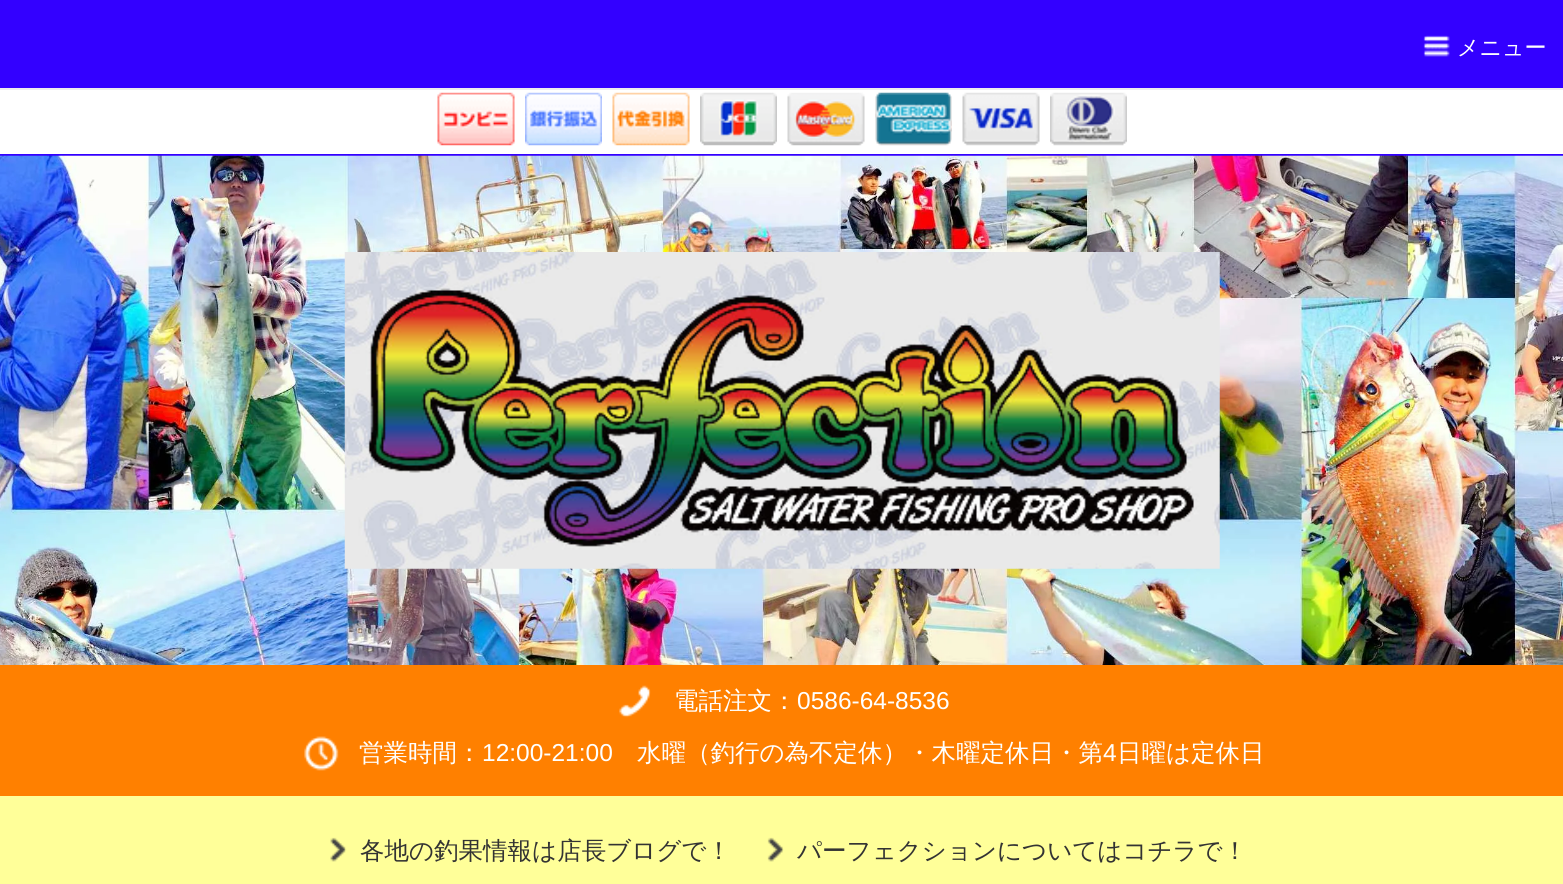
#include <cairo.h>
#include <math.h>
#include <stddef.h>


static void rgb(cairo_t *cr, int r, int g, int b)
{
	cairo_set_source_rgb(cr, r / 255.0, g / 255.0, b / 255.0);
}

static void face(cairo_t *cr, const char *family, double size, int italic, int bold)
{
	cairo_select_font_face(cr, family, italic ? CAIRO_FONT_SLANT_ITALIC : CAIRO_FONT_SLANT_NORMAL,
		bold ? CAIRO_FONT_WEIGHT_BOLD : CAIRO_FONT_WEIGHT_NORMAL);
	cairo_set_font_size(cr, size);
}

static void label(cairo_t *cr, double x, double y, const char *s)
{
	cairo_move_to(cr, x, y);
	cairo_show_text(cr, s);
}

static void rect(cairo_t *cr, double x, double y, double w, double h)
{
	cairo_rectangle(cr, x, y, w, h);
	cairo_fill(cr);
}

static void image(cairo_t *cr, const char *path, double x, double y, double w, double h)
{
	cairo_surface_t *image = cairo_image_surface_create_from_png(path);
	cairo_save(cr);
	cairo_set_source_surface(cr, image, x, y);
	cairo_rectangle(cr, x, y, w, h);
	cairo_fill(cr);
	cairo_restore(cr);
	cairo_surface_destroy(image);
}

static void draw(cairo_t *cr) {
	rgb(cr, 255, 255, 255);
	cairo_paint(cr);
	rgb(cr, 51, 0, 255);
	rect(cr, 0, 0, 1563, 88);
	rgb(cr, 238, 238, 238);
	rect(cr, 0, 88, 1563, 2);
	image(cr, "image0.png", 1423, 35, 27, 22);
	face(cr, "WenQuanYi Zen Hei Medium", 22, 0, 0);
	rgb(cr, 255, 255, 255);
	label(cr, 1457, 55, "メニュー");
	rgb(cr, 51, 0, 255);
	rect(cr, 0, 154, 1563, 2);
	image(cr, "image1.png", 437, 92, 78, 54);
	image(cr, "image2.png", 525, 92, 77, 54);
	image(cr, "image3.png", 612, 92, 78, 54);
	image(cr, "image4.png", 700, 92, 77, 54);
	image(cr, "image5.png", 787, 92, 78, 54);
	image(cr, "image6.png", 875, 92, 77, 54);
	image(cr, "image7.png", 962, 92, 78, 54);
	image(cr, "image8.png", 1050, 92, 77, 54);
	image(cr, "image9.png", 0, 155, 1563, 510);
	image(cr, "image10.png", 344, 252, 876, 317);
	rgb(cr, 255, 128, 0);
	rect(cr, 0, 665, 1563, 131);
	image(cr, "image11.png", 619, 685, 32, 33);
	face(cr, "WenQuanYi Zen Hei Medium", 24.5, 0, 0);
	rgb(cr, 255, 255, 255);
	label(cr, 674, 709, "電話注文：");
	face(cr, "Liberation Sans", 24.5, 0, 0);
	label(cr, 797, 709, "0586-64-8536");
	image(cr, "image12.png", 304, 736, 35, 35);
	face(cr, "WenQuanYi Zen Hei Medium", 24.5, 0, 0);
	label(cr, 359, 761, "営業時間：");
	face(cr, "Liberation Sans", 24.5, 0, 0);
	label(cr, 482, 761, "12:00-21:00");
	face(cr, "WenQuanYi Zen Hei Medium", 24.5, 0, 0);
	label(cr, 637, 761, "水曜（釣行の為不定休）・木曜定休日・第");
	face(cr, "Liberation Sans", 24.5, 0, 0);
	label(cr, 1103, 761, "4");
	face(cr, "WenQuanYi Zen Hei Medium", 24.5, 0, 0);
	label(cr, 1117, 761, "日曜は定休日");
	rgb(cr, 255, 255, 153);
	rect(cr, 0, 796, 1563, 88);
	image(cr, "image13.png", 330, 837, 17, 25);
	rgb(cr, 51, 51, 51);
	label(cr, 360, 859, "各地の釣果情報は店長ブログで！");
	image(cr, "image14.png", 767, 837, 17, 25);
	label(cr, 797, 859, "パーフェクションについてはコチラで！");
}

int main(void) {
	cairo_surface_t *surface = cairo_image_surface_create(CAIRO_FORMAT_RGB24, 1563, 884);
	cairo_t *cr = cairo_create(surface);
	cairo_font_options_t *options = cairo_font_options_create();
	cairo_font_options_set_hint_metrics(options, CAIRO_HINT_METRICS_OFF);
	cairo_font_options_set_hint_style(options, CAIRO_HINT_STYLE_NONE);
	cairo_set_font_options(cr, options);
	cairo_set_miter_limit(cr, 4);
	draw(cr);
	cairo_surface_write_to_png(surface, "render.png");
	cairo_font_options_destroy(options);
	cairo_destroy(cr);
	cairo_surface_destroy(surface);
	return 0;
}
